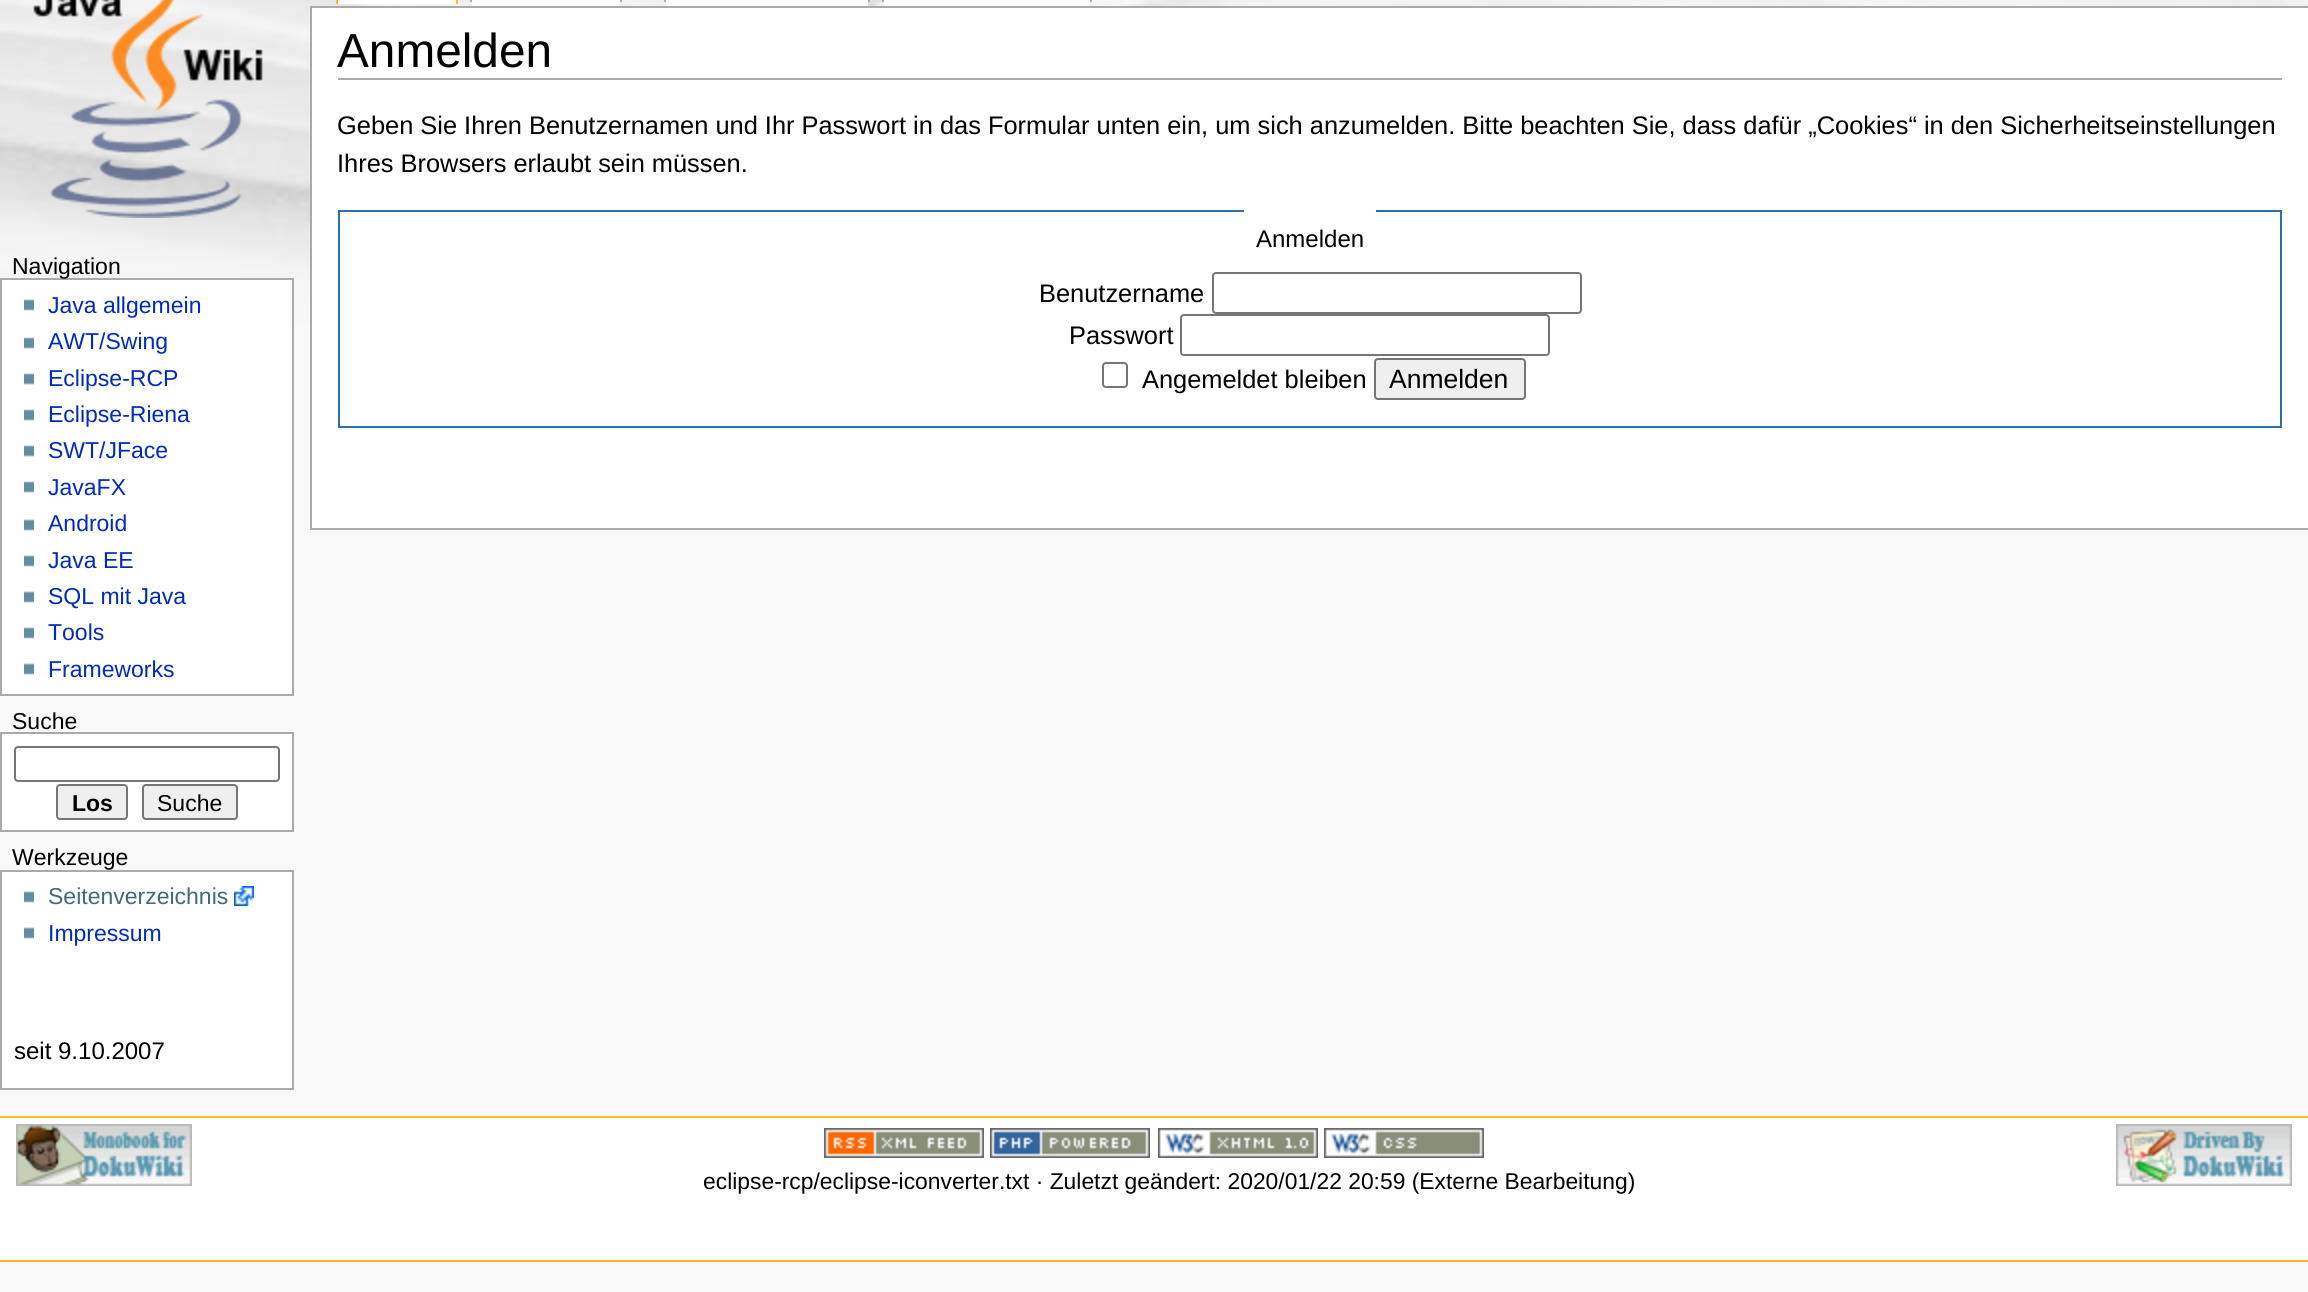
#include <cairo.h>
#include <math.h>
#include <stddef.h>


static void rgb(cairo_t *cr, int r, int g, int b)
{
	cairo_set_source_rgb(cr, r / 255.0, g / 255.0, b / 255.0);
}

static void face(cairo_t *cr, const char *family, double size, int italic, int bold)
{
	cairo_select_font_face(cr, family, italic ? CAIRO_FONT_SLANT_ITALIC : CAIRO_FONT_SLANT_NORMAL,
		bold ? CAIRO_FONT_WEIGHT_BOLD : CAIRO_FONT_WEIGHT_NORMAL);
	cairo_set_font_size(cr, size);
}

static void label(cairo_t *cr, double x, double y, const char *s)
{
	cairo_move_to(cr, x, y);
	cairo_show_text(cr, s);
}

static void rect(cairo_t *cr, double x, double y, double w, double h)
{
	cairo_rectangle(cr, x, y, w, h);
	cairo_fill(cr);
}

static void rrect(cairo_t *cr, double x, double y, double w, double h, double r)
{
	cairo_new_sub_path(cr);
	cairo_arc(cr, x + w - r, y + h - r, r, 0, M_PI / 2);
	cairo_arc(cr, x + r, y + h - r, r, M_PI / 2, M_PI);
	cairo_arc(cr, x + r, y + r, r, M_PI, 1.5 * M_PI);
	cairo_arc(cr, x + w - r, y + r, r, 1.5 * M_PI, 2 * M_PI);
	cairo_close_path(cr);
}

static void image(cairo_t *cr, const char *path, double x, double y, double w, double h)
{
	cairo_surface_t *image = cairo_image_surface_create_from_png(path);
	cairo_save(cr);
	cairo_set_source_surface(cr, image, x, y);
	cairo_rectangle(cr, x, y, w, h);
	cairo_fill(cr);
	cairo_restore(cr);
	cairo_surface_destroy(image);
}

static void draw(cairo_t *cr) {
	rgb(cr, 249, 249, 249);
	cairo_paint(cr);
	image(cr, "image0.png", 0, 0, 2308, 323);
	rgb(cr, 255, 255, 255);
	rect(cr, 312, 8, 1996, 520);
	rgb(cr, 170, 170, 170);
	rect(cr, 310, 6, 1998, 2);
	rect(cr, 310, 528, 1998, 2);
	rect(cr, 310, 6, 2, 524);
	rect(cr, 338, 78, 1944, 2);
	face(cr, "Liberation Sans", 47.75, 0, 0);
	rgb(cr, 0, 0, 0);
	label(cr, 337, 67, "Anmelden");
	face(cr, "Liberation Sans", 25.4, 0, 0);
	label(cr, 337, 134, "Geben Sie Ihren Benutzernamen und Ihr Passwort in das Formular unten ein, um sich anzumelden. Bitte beachten Sie, dass dafür „Cookies“ in den Sicherheitseinstellungen");
	label(cr, 337, 172, "Ihres Browsers erlaubt sein müssen.");
	cairo_rectangle(cr, 339, 211, 1942, 216);
	rgb(cr, 47, 111, 171);
	cairo_stroke(cr);
	rgb(cr, 255, 255, 255);
	rect(cr, 1244, 210, 132, 2);
	face(cr, "Liberation Sans", 24, 0, 0);
	rgb(cr, 0, 0, 0);
	label(cr, 1256, 247, "Anmelden");
	face(cr, "Liberation Sans", 25.4, 0, 0);
	label(cr, 1039, 302, "Benutzername");
	rrect(cr, 1213, 273, 368, 40, 3);
	rgb(cr, 118, 118, 118);
	cairo_stroke(cr);
	rgb(cr, 0, 0, 0);
	label(cr, 1069, 344, "Passwort");
	rrect(cr, 1181, 315, 368, 40, 3);
	rgb(cr, 118, 118, 118);
	cairo_stroke(cr);
	rrect(cr, 1103, 363, 24, 24, 3);
	cairo_stroke(cr);
	rgb(cr, 0, 0, 0);
	label(cr, 1142, 388, "Angemeldet bleiben");
	rgb(cr, 239, 239, 239);
	rrect(cr, 1375, 359, 150, 40, 3);
	cairo_fill_preserve(cr);
	rgb(cr, 118, 118, 118);
	cairo_stroke(cr);
	face(cr, "Liberation Sans", 26.5, 0, 0);
	rgb(cr, 0, 0, 0);
	label(cr, 1389, 388, "Anmelden");
	image(cr, "image1.png", 33, 0, 230, 218);
	rgb(cr, 255, 255, 255);
	rect(cr, 336, 0, 122, 4);
	rgb(cr, 250, 189, 35);
	rect(cr, 336, 0, 2, 4);
	rect(cr, 456, 0, 2, 4);
	rgb(cr, 170, 170, 170);
	rect(cr, 470, 0, 2, 2);
	rgb(cr, 251, 251, 251);
	rect(cr, 472, 0, 148, 6);
	rgb(cr, 170, 170, 170);
	rect(cr, 620, 0, 2, 2);
	rect(cr, 664, 0, 2, 2);
	rgb(cr, 251, 251, 251);
	rect(cr, 666, 0, 202, 6);
	rgb(cr, 170, 170, 170);
	rect(cr, 868, 0, 2, 2);
	rect(cr, 882, 0, 2, 2);
	rgb(cr, 251, 251, 251);
	rect(cr, 884, 0, 206, 6);
	rgb(cr, 170, 170, 170);
	rect(cr, 1090, 0, 2, 2);
	rgb(cr, 255, 255, 255);
	cairo_rectangle(cr, 1, 279, 292, 416);
	cairo_fill_preserve(cr);
	rgb(cr, 170, 170, 170);
	cairo_stroke(cr);
	face(cr, "Liberation Sans", 23, 0, 0);
	rgb(cr, 0, 0, 0);
	label(cr, 12, 274, "Navigation");
	image(cr, "image2.png", 24, 299, 10, 12);
	rgb(cr, 0, 43, 184);
	label(cr, 48, 313, "Java allgemein");
	image(cr, "image2.png", 24, 337, 10, 12);
	label(cr, 48, 349, "AWT/Swing");
	image(cr, "image2.png", 24, 373, 10, 12);
	label(cr, 48, 386, "Eclipse-RCP");
	image(cr, "image2.png", 24, 409, 10, 12);
	label(cr, 48, 422, "Eclipse-Riena");
	image(cr, "image2.png", 24, 445, 10, 12);
	label(cr, 48, 458, "SWT/JFace");
	image(cr, "image2.png", 24, 481, 10, 12);
	label(cr, 48, 495, "JavaFX");
	image(cr, "image2.png", 24, 519, 10, 12);
	label(cr, 48, 531, "Android");
	image(cr, "image2.png", 24, 555, 10, 12);
	label(cr, 48, 568, "Java EE");
	image(cr, "image2.png", 24, 591, 10, 12);
	label(cr, 48, 604, "SQL mit Java");
	image(cr, "image2.png", 24, 627, 10, 12);
	label(cr, 48, 640, "Tools");
	image(cr, "image2.png", 24, 663, 10, 12);
	label(cr, 48, 677, "Frameworks");
	rgb(cr, 0, 0, 0);
	label(cr, 12, 729, "Suche");
	rgb(cr, 255, 255, 255);
	cairo_rectangle(cr, 1, 733, 292, 98);
	cairo_fill_preserve(cr);
	rgb(cr, 170, 170, 170);
	cairo_stroke(cr);
	rrect(cr, 15, 747, 264, 34, 3);
	rgb(cr, 118, 118, 118);
	cairo_stroke(cr);
	rgb(cr, 239, 239, 239);
	rrect(cr, 57, 785, 70, 34, 3);
	cairo_fill_preserve(cr);
	rgb(cr, 118, 118, 118);
	cairo_stroke(cr);
	face(cr, "Liberation Sans", 23, 0, 1);
	rgb(cr, 0, 0, 0);
	label(cr, 72, 811, "Los");
	rgb(cr, 239, 239, 239);
	rrect(cr, 143, 785, 94, 34, 3);
	cairo_fill_preserve(cr);
	rgb(cr, 118, 118, 118);
	cairo_stroke(cr);
	face(cr, "Liberation Sans", 23, 0, 0);
	rgb(cr, 0, 0, 0);
	label(cr, 157, 811, "Suche");
	label(cr, 12, 865, "Werkzeuge");
	rgb(cr, 255, 255, 255);
	cairo_rectangle(cr, 1, 871, 292, 218);
	cairo_fill_preserve(cr);
	rgb(cr, 170, 170, 170);
	cairo_stroke(cr);
	image(cr, "image2.png", 24, 891, 10, 12);
	rgb(cr, 67, 105, 118);
	label(cr, 48, 904, "Seitenverzeichnis");
	image(cr, "image3.png", 234, 886, 20, 20);
	image(cr, "image2.png", 24, 927, 10, 12);
	rgb(cr, 0, 43, 184);
	label(cr, 48, 941, "Impressum");
	face(cr, "Liberation Sans", 24, 0, 0);
	rgb(cr, 0, 0, 0);
	label(cr, 14, 1059, "seit 9.10.2007");
	rgb(cr, 255, 255, 255);
	rect(cr, 0, 1118, 2308, 142);
	rgb(cr, 250, 189, 35);
	rect(cr, 0, 1116, 2308, 2);
	rect(cr, 0, 1260, 2308, 2);
	image(cr, "image4.png", 16, 1124, 176, 62);
	image(cr, "image5.png", 824, 1128, 160, 30);
	image(cr, "image6.png", 990, 1128, 160, 30);
	image(cr, "image7.png", 1158, 1128, 160, 30);
	image(cr, "image8.png", 1324, 1128, 160, 30);
	image(cr, "image9.png", 2116, 1124, 176, 62);
	face(cr, "Liberation Sans", 22.85, 0, 0);
	rgb(cr, 0, 0, 0);
	label(cr, 703, 1189, "eclipse-rcp/eclipse-iconverter.txt · Zuletzt geändert: 2020/01/22 20:59 (Externe Bearbeitung)");
}

int main(void) {
	cairo_surface_t *surface = cairo_image_surface_create(CAIRO_FORMAT_RGB24, 2308, 1292);
	cairo_t *cr = cairo_create(surface);
	cairo_font_options_t *options = cairo_font_options_create();
	cairo_font_options_set_hint_metrics(options, CAIRO_HINT_METRICS_OFF);
	cairo_font_options_set_hint_style(options, CAIRO_HINT_STYLE_NONE);
	cairo_set_font_options(cr, options);
	cairo_set_miter_limit(cr, 4);
	draw(cr);
	cairo_surface_write_to_png(surface, "render.png");
	cairo_font_options_destroy(options);
	cairo_destroy(cr);
	cairo_surface_destroy(surface);
	return 0;
}
